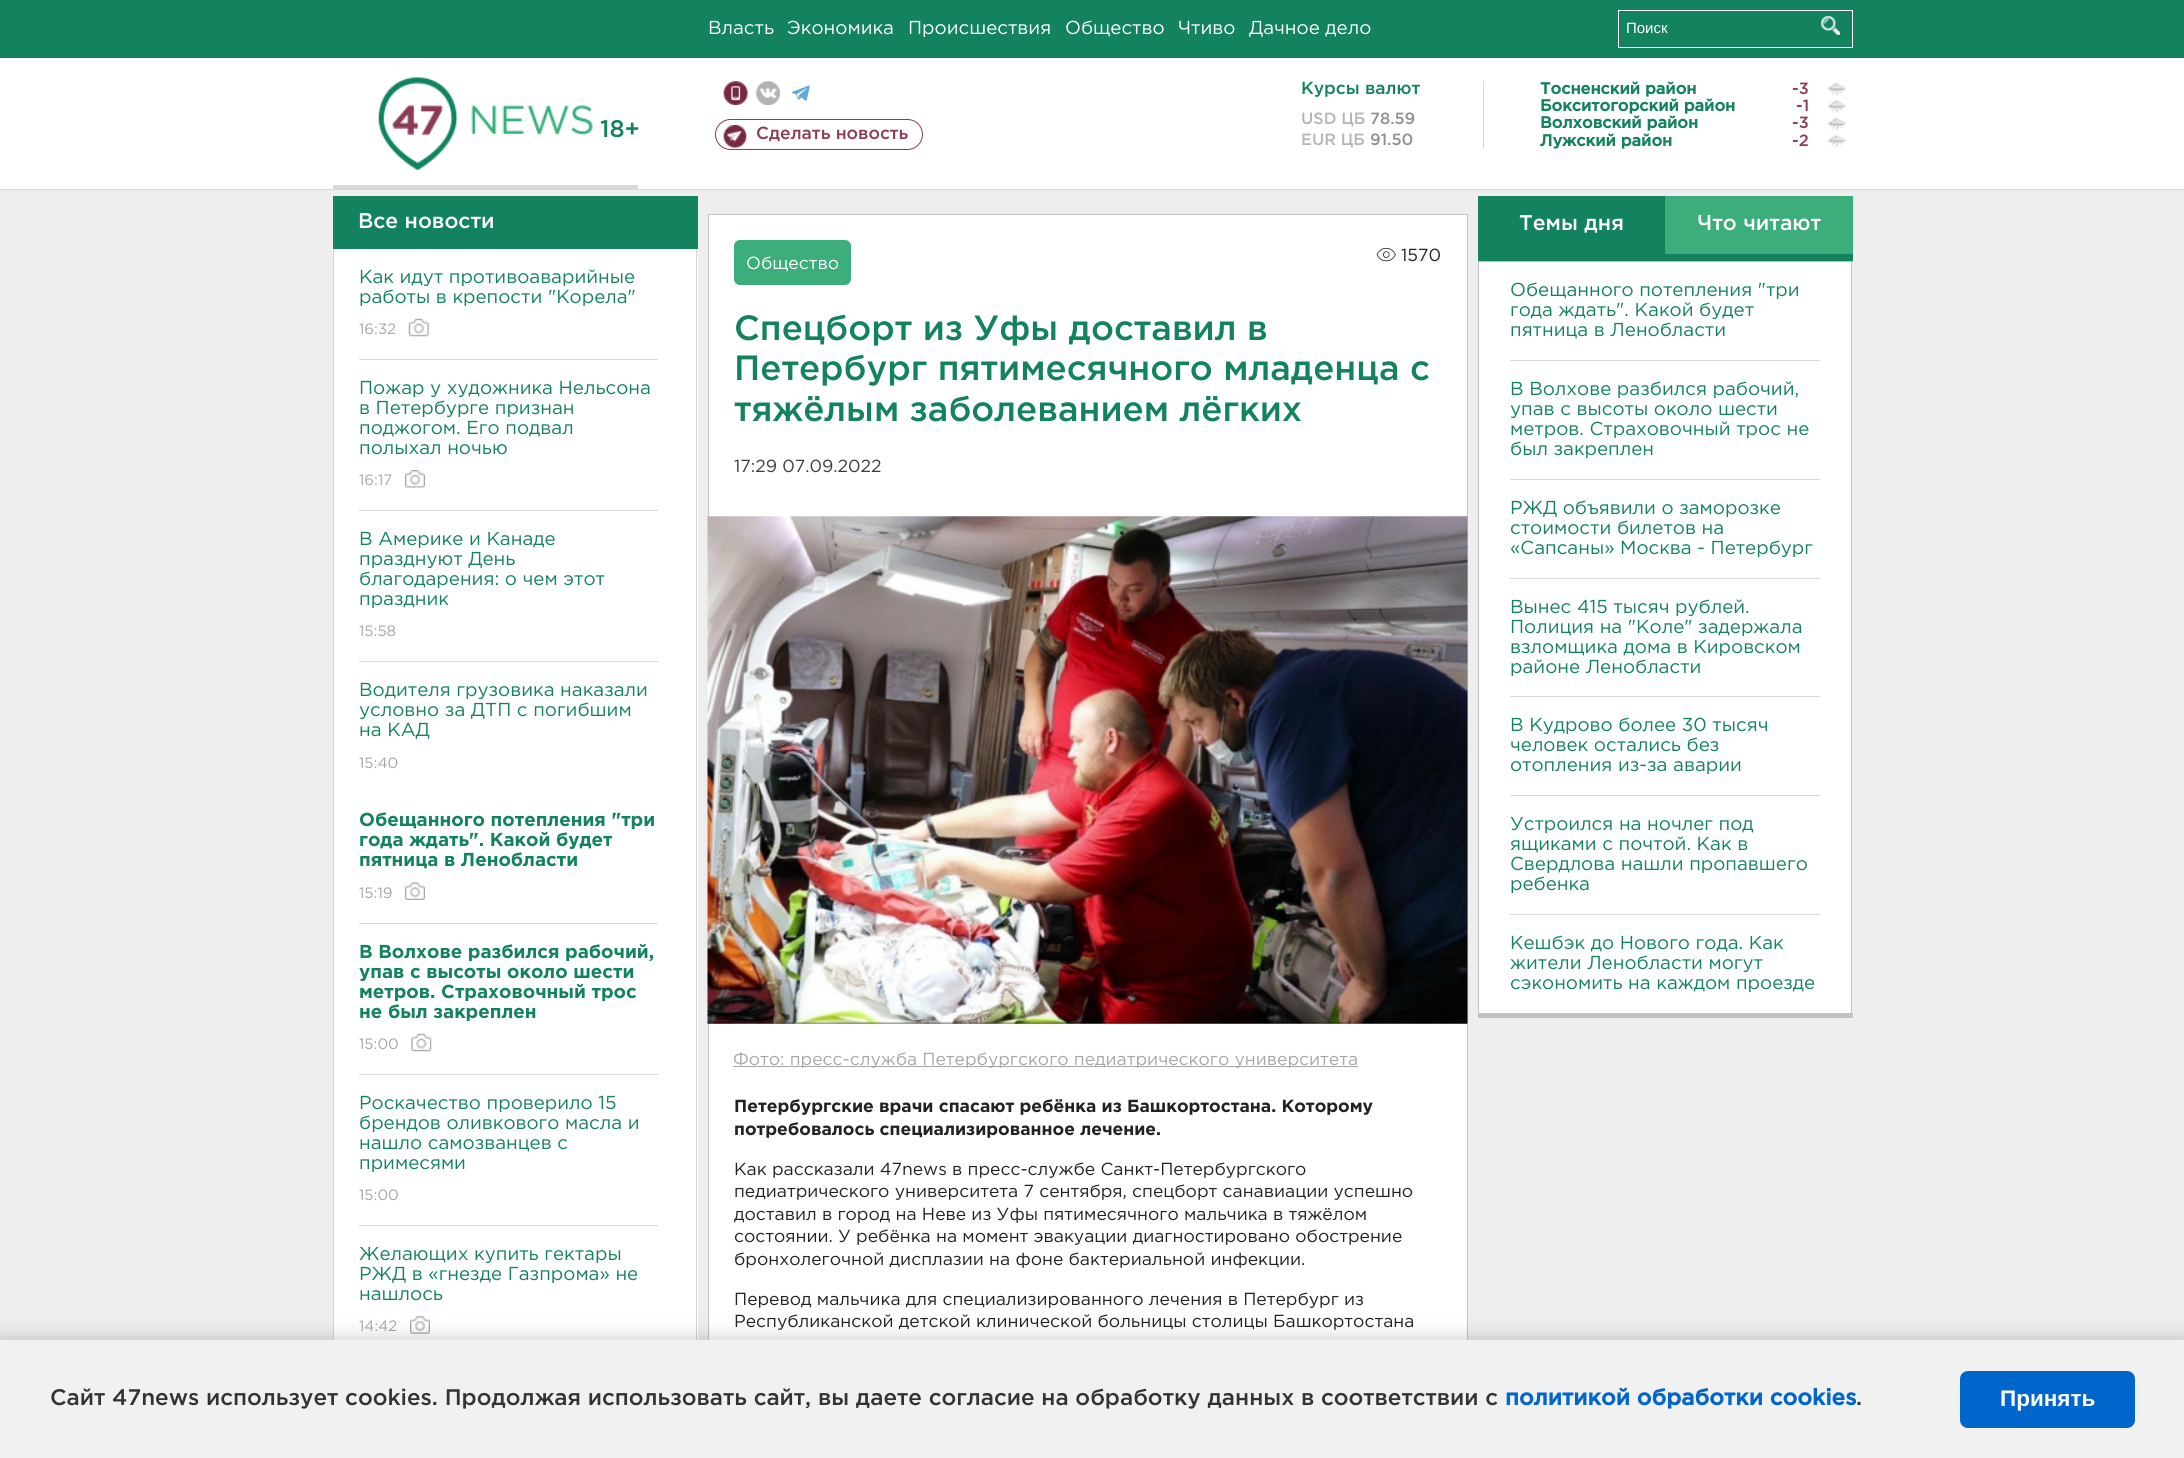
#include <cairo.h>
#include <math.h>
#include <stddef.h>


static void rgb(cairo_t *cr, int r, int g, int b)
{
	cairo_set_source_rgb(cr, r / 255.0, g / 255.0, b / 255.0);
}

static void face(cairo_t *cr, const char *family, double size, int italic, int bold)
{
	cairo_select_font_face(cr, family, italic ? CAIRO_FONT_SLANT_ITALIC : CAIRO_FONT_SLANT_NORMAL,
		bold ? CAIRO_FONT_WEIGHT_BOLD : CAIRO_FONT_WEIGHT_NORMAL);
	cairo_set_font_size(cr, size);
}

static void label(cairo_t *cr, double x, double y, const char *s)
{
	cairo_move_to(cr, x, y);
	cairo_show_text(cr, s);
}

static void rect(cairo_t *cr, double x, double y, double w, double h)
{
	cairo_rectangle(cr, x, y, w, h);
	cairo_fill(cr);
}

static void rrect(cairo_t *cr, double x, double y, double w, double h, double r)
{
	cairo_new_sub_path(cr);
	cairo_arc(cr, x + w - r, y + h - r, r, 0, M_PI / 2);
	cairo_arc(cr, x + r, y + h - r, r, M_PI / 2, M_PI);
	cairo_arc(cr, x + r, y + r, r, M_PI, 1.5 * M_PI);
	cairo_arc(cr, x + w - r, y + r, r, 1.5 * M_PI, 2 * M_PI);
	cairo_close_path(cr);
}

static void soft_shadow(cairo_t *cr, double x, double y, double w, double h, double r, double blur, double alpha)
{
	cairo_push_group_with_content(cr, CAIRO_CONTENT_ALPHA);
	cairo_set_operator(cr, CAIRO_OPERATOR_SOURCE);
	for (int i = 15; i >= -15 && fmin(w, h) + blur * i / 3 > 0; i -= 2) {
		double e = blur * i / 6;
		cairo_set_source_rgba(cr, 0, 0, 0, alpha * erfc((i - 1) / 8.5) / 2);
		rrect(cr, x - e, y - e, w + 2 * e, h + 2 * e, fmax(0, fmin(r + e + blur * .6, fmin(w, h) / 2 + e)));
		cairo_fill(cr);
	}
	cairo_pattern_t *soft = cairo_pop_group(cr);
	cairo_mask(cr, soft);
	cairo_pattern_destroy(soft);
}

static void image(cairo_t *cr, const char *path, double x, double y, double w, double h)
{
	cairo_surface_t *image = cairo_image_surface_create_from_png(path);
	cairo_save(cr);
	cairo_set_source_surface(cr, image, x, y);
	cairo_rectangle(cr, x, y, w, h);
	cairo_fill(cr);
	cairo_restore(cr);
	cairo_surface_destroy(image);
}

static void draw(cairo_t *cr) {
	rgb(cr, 238, 238, 238);
	cairo_paint(cr);
	rgb(cr, 19, 130, 95);
	rect(cr, 0, 0, 2184, 58);
	face(cr, "Gotham", 18.75, 0, 0);
	rgb(cr, 255, 255, 255);
	label(cr, 708, 34, "Власть");
	label(cr, 787, 34, "Экономика");
	label(cr, 908, 34, "Происшествия");
	label(cr, 1065, 34, "Общество");
	label(cr, 1178, 34, "Чтиво");
	label(cr, 1249, 34, "Дачное дело");
	cairo_rectangle(cr, 1618.5, 10.5, 234, 37);
	cairo_set_line_width(cr, 1);
	cairo_stroke(cr);
	face(cr, "Liberation Sans", 15, 0, 0);
	label(cr, 1626, 33, "Поиск");
	image(cr, "image0.png", 1821, 16, 19, 19);
	rect(cr, 0, 58, 2184, 131);
	rgb(cr, 218, 217, 217);
	rect(cr, 0, 189, 2184, 1);
	rect(cr, 333, 185, 305, 4);
	image(cr, "image1.png", 378, 77, 215, 93);
	face(cr, "Gotham Medium", 17.5, 0, 0);
	rgb(cr, 19, 130, 95);
	label(cr, 1301, 94, "Курсы валют");
	face(cr, "Gotham Medium", 16.25, 0, 0);
	rgb(cr, 181, 181, 181);
	label(cr, 1301, 124, "USD ЦБ");
	rgb(cr, 145, 145, 145);
	label(cr, 1370, 124, "78.59");
	rgb(cr, 181, 181, 181);
	label(cr, 1301, 145, "EUR ЦБ");
	rgb(cr, 145, 145, 145);
	label(cr, 1370, 145, "91.50");
	rgb(cr, 214, 214, 214);
	rect(cr, 1483, 81, 1, 68);
	face(cr, "Gotham", 16.25, 0, 1);
	rgb(cr, 19, 130, 95);
	label(cr, 1540, 94, "Тосненский район");
	face(cr, "Gotham Medium", 16.25, 0, 0);
	rgb(cr, 140, 59, 82);
	label(cr, 1792, 94, "-3");
	image(cr, "image2.png", 1827, 82, 19, 14);
	face(cr, "Gotham", 16.25, 0, 1);
	rgb(cr, 19, 130, 95);
	label(cr, 1540, 111, "Бокситогорский район");
	face(cr, "Gotham Medium", 16.25, 0, 0);
	rgb(cr, 140, 59, 82);
	label(cr, 1796, 111, "-1");
	image(cr, "image3.png", 1827, 100, 19, 14);
	face(cr, "Gotham", 16.25, 0, 1);
	rgb(cr, 19, 130, 95);
	label(cr, 1540, 128, "Волховский район");
	face(cr, "Gotham Medium", 16.25, 0, 0);
	rgb(cr, 140, 59, 82);
	label(cr, 1792, 128, "-3");
	image(cr, "image2.png", 1827, 117, 19, 14);
	face(cr, "Gotham", 16.25, 0, 1);
	rgb(cr, 19, 130, 95);
	label(cr, 1540, 146, "Лужский район");
	face(cr, "Gotham Medium", 16.25, 0, 0);
	rgb(cr, 140, 59, 82);
	label(cr, 1792, 146, "-2");
	image(cr, "image4.png", 1827, 135, 19, 12);
	face(cr, "Gotham Medium", 24, 0, 0);
	rgb(cr, 19, 130, 95);
	label(cr, 600, 137, "18+");
	image(cr, "image5.png", 723, 81, 25, 24);
	image(cr, "image6.png", 756, 81, 24, 24);
	image(cr, "image7.png", 791, 85, 19, 16);
	image(cr, "image8.png", 723, 125, 24, 23);
	rrect(cr, 715.5, 119.5, 207, 30, 15);
	rgb(cr, 140, 59, 82);
	cairo_stroke(cr);
	face(cr, "Gotham Medium", 17.5, 0, 0);
	label(cr, 756, 139, "Сделать новость");
	rgb(cr, 19, 130, 95);
	rect(cr, 333, 196, 365, 53);
	face(cr, "Gotham Medium", 21.25, 0, 0);
	rgb(cr, 255, 255, 255);
	label(cr, 358, 228, "Все новости");
	rect(cr, 334, 249, 364, 1091);
	rgb(cr, 214, 214, 214);
	rect(cr, 696, 249, 1, 1091);
	rect(cr, 333, 249, 1, 1091);
	rgb(cr, 216, 216, 216);
	rect(cr, 359, 359, 299, 1);
	face(cr, "Gotham", 18.75, 0, 0);
	rgb(cr, 19, 130, 95);
	label(cr, 359, 283, "Как идут противоаварийные");
	label(cr, 359, 303, "работы в крепости \"Корела\"");
	face(cr, "Gotham", 15, 0, 0);
	rgb(cr, 167, 167, 167);
	label(cr, 359, 334, "16:32");
	image(cr, "image9.png", 408, 318, 21, 19);
	rgb(cr, 216, 216, 216);
	rect(cr, 359, 510, 299, 1);
	face(cr, "Gotham", 18.75, 0, 0);
	rgb(cr, 19, 130, 95);
	label(cr, 359, 394, "Пожар у художника Нельсона");
	label(cr, 359, 414, "в Петербурге признан");
	label(cr, 359, 434, "поджогом. Его подвал");
	label(cr, 359, 454, "полыхал ночью");
	face(cr, "Gotham", 15, 0, 0);
	rgb(cr, 167, 167, 167);
	label(cr, 359, 485, "16:17");
	image(cr, "image10.png", 405, 470, 20, 18);
	rgb(cr, 216, 216, 216);
	rect(cr, 359, 661, 299, 1);
	face(cr, "Gotham", 18.75, 0, 0);
	rgb(cr, 19, 130, 95);
	label(cr, 359, 545, "В Америке и Канаде");
	label(cr, 359, 565, "празднуют День");
	label(cr, 359, 585, "благодарения: о чем этот");
	label(cr, 359, 605, "праздник");
	face(cr, "Gotham", 15, 0, 0);
	rgb(cr, 167, 167, 167);
	label(cr, 359, 636, "15:58");
	face(cr, "Gotham", 18.75, 0, 0);
	rgb(cr, 19, 130, 95);
	label(cr, 359, 696, "Водителя грузовика наказали");
	label(cr, 359, 716, "условно за ДТП с погибшим");
	label(cr, 359, 736, "на КАД");
	face(cr, "Gotham", 15, 0, 0);
	rgb(cr, 167, 167, 167);
	label(cr, 359, 768, "15:40");
	rgb(cr, 216, 216, 216);
	rect(cr, 359, 923, 299, 1);
	face(cr, "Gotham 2", 18.75, 0, 1);
	rgb(cr, 19, 130, 95);
	label(cr, 359, 826, "Обещанного потепления \"три");
	label(cr, 359, 846, "года ждать\". Какой будет");
	label(cr, 359, 866, "пятница в Ленобласти");
	face(cr, "Gotham", 15, 0, 0);
	rgb(cr, 167, 167, 167);
	label(cr, 359, 898, "15:19");
	image(cr, "image11.png", 405, 882, 20, 18);
	rgb(cr, 216, 216, 216);
	rect(cr, 359, 1074, 299, 1);
	face(cr, "Gotham 2", 18.75, 0, 1);
	rgb(cr, 19, 130, 95);
	label(cr, 359, 958, "В Волхове разбился рабочий,");
	label(cr, 359, 978, "упав с высоты около шести");
	label(cr, 359, 998, "метров. Страховочный трос");
	label(cr, 359, 1018, "не был закреплен");
	face(cr, "Gotham", 15, 0, 0);
	rgb(cr, 167, 167, 167);
	label(cr, 359, 1049, "15:00");
	image(cr, "image12.png", 411, 1033, 21, 19);
	rgb(cr, 216, 216, 216);
	rect(cr, 359, 1225, 299, 1);
	face(cr, "Gotham", 18.75, 0, 0);
	rgb(cr, 19, 130, 95);
	label(cr, 359, 1109, "Роскачество проверило 15");
	label(cr, 359, 1129, "брендов оливкового масла и");
	label(cr, 359, 1149, "нашло самозванцев с");
	label(cr, 359, 1169, "примесями");
	face(cr, "Gotham", 15, 0, 0);
	rgb(cr, 167, 167, 167);
	label(cr, 359, 1200, "15:00");
	face(cr, "Gotham", 18.75, 0, 0);
	rgb(cr, 19, 130, 95);
	label(cr, 359, 1260, "Желающих купить гектары");
	label(cr, 359, 1280, "РЖД в «гнезде Газпрома» не");
	label(cr, 359, 1300, "нашлось");
	face(cr, "Gotham", 15, 0, 0);
	rgb(cr, 167, 167, 167);
	label(cr, 359, 1331, "14:42");
	image(cr, "image13.png", 410, 1316, 20, 18);
	rgb(cr, 255, 255, 255);
	rect(cr, 709, 215, 758, 1125);
	cairo_rectangle(cr, 708.5, 214.5, 759, 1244);
	rgb(cr, 194, 194, 194);
	cairo_stroke(cr);
	rgb(cr, 59, 174, 124);
	rrect(cr, 734, 240, 117, 45, 6);
	cairo_fill(cr);
	face(cr, "Gotham", 17.5, 0, 0);
	rgb(cr, 255, 255, 255);
	label(cr, 746, 269, "Общество");
	image(cr, "image14.png", 1376, 247, 20, 15);
	rgb(cr, 34, 34, 34);
	label(cr, 1401, 261, "1570");
	face(cr, "Gotham Medium", 35, 0, 0);
	rgb(cr, 19, 130, 95);
	label(cr, 734, 340, "Спецборт из Уфы доставил в");
	label(cr, 734, 380, "Петербург пятимесячного младенца с");
	label(cr, 734, 421, "тяжёлым заболеванием лёгких");
	face(cr, "Gotham", 17.5, 0, 0);
	rgb(cr, 60, 60, 60);
	label(cr, 734, 472, "17:29 07.09.2022");
	image(cr, "image15.png", 707, 516, 761, 508);
	rgb(cr, 167, 167, 167);
	rect(cr, 733, 1066, 625, 1);
	label(cr, 733, 1065, "Фото: пресс-служба Петербургского педиатрического университета");
	face(cr, "Gotham 2", 17.5, 0, 1);
	rgb(cr, 34, 34, 34);
	label(cr, 734, 1112, "Петербургские врачи спасают ребёнка из Башкортостана. Которому");
	label(cr, 734, 1135, "потребовалось специализированное лечение.");
	face(cr, "Gotham", 17.5, 0, 0);
	label(cr, 734, 1175, "Как рассказали 47news в пресс-службе Санкт-Петербургского");
	label(cr, 734, 1197, "педиатрического университета 7 сентября, спецборт санавиации успешно");
	label(cr, 734, 1220, "доставил в город на Неве из Уфы пятимесячного мальчика в тяжёлом");
	label(cr, 734, 1242, "состоянии. У ребёнка на момент эвакуации диагностировано обострение");
	label(cr, 734, 1265, "бронхолегочной дисплазии на фоне бактериальной инфекции.");
	label(cr, 734, 1305, "Перевод мальчика для специализированного лечения в Петербург из");
	label(cr, 734, 1327, "Республиканской детской клинической больницы столицы Башкортостана");
	rgb(cr, 19, 130, 95);
	rect(cr, 1478, 196, 375, 65);
	face(cr, "Gotham Medium", 21.25, 0, 0);
	rgb(cr, 255, 255, 255);
	label(cr, 1519, 230, "Темы дня");
	rgb(cr, 59, 174, 124);
	rect(cr, 1665, 196, 188, 58);
	rgb(cr, 255, 255, 255);
	label(cr, 1697, 230, "Что читают");
	rect(cr, 1479, 263, 372, 750);
	rgb(cr, 194, 194, 194);
	rect(cr, 1478, 261, 375, 1);
	rect(cr, 1851, 261, 1, 757);
	rect(cr, 1478, 1013, 375, 5);
	rect(cr, 1478, 261, 1, 757);
	rgb(cr, 216, 216, 216);
	rect(cr, 1510, 360, 310, 1);
	face(cr, "Gotham", 18.75, 0, 0);
	rgb(cr, 19, 130, 95);
	label(cr, 1510, 296, "Обещанного потепления \"три");
	label(cr, 1510, 316, "года ждать\". Какой будет");
	label(cr, 1510, 336, "пятница в Ленобласти");
	rgb(cr, 216, 216, 216);
	rect(cr, 1510, 479, 310, 1);
	rgb(cr, 19, 130, 95);
	label(cr, 1510, 395, "В Волхове разбился рабочий,");
	label(cr, 1510, 415, "упав с высоты около шести");
	label(cr, 1510, 435, "метров. Страховочный трос не");
	label(cr, 1510, 455, "был закреплен");
	rgb(cr, 216, 216, 216);
	rect(cr, 1510, 578, 310, 1);
	rgb(cr, 19, 130, 95);
	label(cr, 1510, 514, "РЖД объявили о заморозке");
	label(cr, 1510, 534, "стоимости билетов на");
	label(cr, 1510, 554, "«Сапсаны» Москва - Петербург");
	rgb(cr, 216, 216, 216);
	rect(cr, 1510, 696, 310, 1);
	rgb(cr, 19, 130, 95);
	label(cr, 1510, 613, "Вынес 415 тысяч рублей.");
	label(cr, 1510, 633, "Полиция на \"Коле\" задержала");
	label(cr, 1510, 653, "взломщика дома в Кировском");
	label(cr, 1510, 673, "районе Ленобласти");
	rgb(cr, 216, 216, 216);
	rect(cr, 1510, 795, 310, 1);
	rgb(cr, 19, 130, 95);
	label(cr, 1510, 731, "В Кудрово более 30 тысяч");
	label(cr, 1510, 751, "человек остались без");
	label(cr, 1510, 771, "отопления из-за аварии");
	rgb(cr, 216, 216, 216);
	rect(cr, 1510, 914, 310, 1);
	rgb(cr, 19, 130, 95);
	label(cr, 1510, 830, "Устроился на ночлег под");
	label(cr, 1510, 850, "ящиками с почтой. Как в");
	label(cr, 1510, 870, "Свердлова нашли пропавшего");
	label(cr, 1510, 890, "ребенка");
	label(cr, 1510, 949, "Кешбэк до Нового года. Как");
	label(cr, 1510, 969, "жители Ленобласти могут");
	label(cr, 1510, 989, "сэкономить на каждом проезде");
	rgb(cr, 0, 0, 0);
	soft_shadow(cr, 0, 1338, 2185, 118, 0, 9.5, 0.2);
	rgb(cr, 241, 241, 241);
	rect(cr, 0, 1340, 2184, 118);
	face(cr, "Gotham Medium", 22.5, 0, 0);
	rgb(cr, 51, 51, 51);
	label(cr, 50, 1405, "Сайт 47news использует cookies. Продолжая использовать сайт, вы даете согласие на обработку данных в соответствии с");
	face(cr, "Gotham", 22.5, 0, 1);
	rgb(cr, 0, 102, 204);
	label(cr, 1505, 1405, "политикой обработки cookies");
	face(cr, "Gotham Medium", 22.5, 0, 0);
	rgb(cr, 51, 51, 51);
	label(cr, 1856, 1405, ".");
	rgb(cr, 0, 102, 204);
	rrect(cr, 1960, 1371, 175, 57, 8);
	cairo_fill(cr);
	face(cr, "Liberation Sans", 22.5, 0, 1);
	rgb(cr, 255, 255, 255);
	label(cr, 2000, 1406, "Принять");
}

int main(void) {
	cairo_surface_t *surface = cairo_image_surface_create(CAIRO_FORMAT_RGB24, 2184, 1458);
	cairo_t *cr = cairo_create(surface);
	cairo_font_options_t *options = cairo_font_options_create();
	cairo_font_options_set_hint_metrics(options, CAIRO_HINT_METRICS_OFF);
	cairo_font_options_set_hint_style(options, CAIRO_HINT_STYLE_NONE);
	cairo_set_font_options(cr, options);
	cairo_set_miter_limit(cr, 4);
	draw(cr);
	cairo_surface_write_to_png(surface, "render.png");
	cairo_font_options_destroy(options);
	cairo_destroy(cr);
	cairo_surface_destroy(surface);
	return 0;
}
